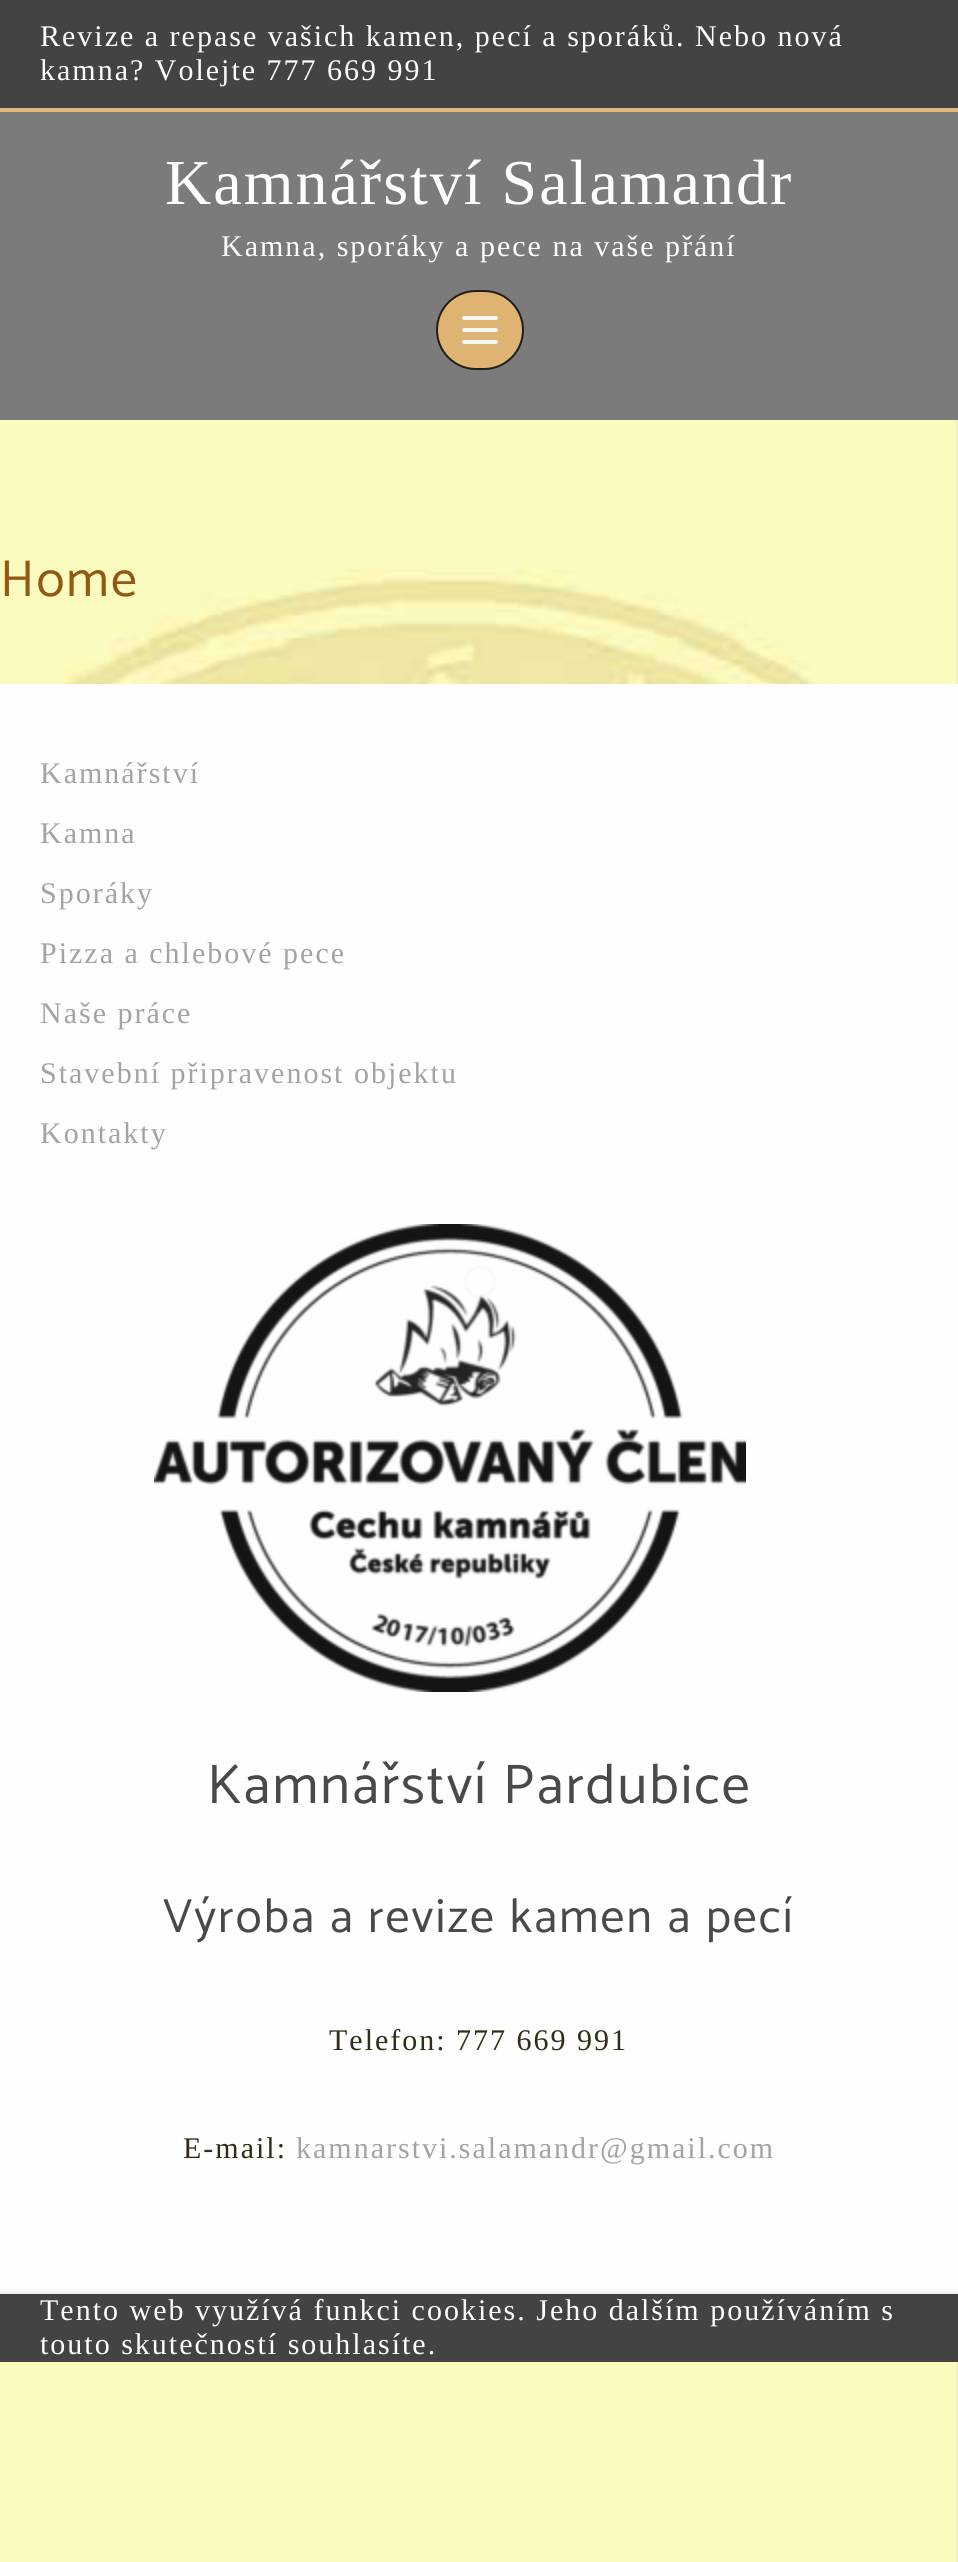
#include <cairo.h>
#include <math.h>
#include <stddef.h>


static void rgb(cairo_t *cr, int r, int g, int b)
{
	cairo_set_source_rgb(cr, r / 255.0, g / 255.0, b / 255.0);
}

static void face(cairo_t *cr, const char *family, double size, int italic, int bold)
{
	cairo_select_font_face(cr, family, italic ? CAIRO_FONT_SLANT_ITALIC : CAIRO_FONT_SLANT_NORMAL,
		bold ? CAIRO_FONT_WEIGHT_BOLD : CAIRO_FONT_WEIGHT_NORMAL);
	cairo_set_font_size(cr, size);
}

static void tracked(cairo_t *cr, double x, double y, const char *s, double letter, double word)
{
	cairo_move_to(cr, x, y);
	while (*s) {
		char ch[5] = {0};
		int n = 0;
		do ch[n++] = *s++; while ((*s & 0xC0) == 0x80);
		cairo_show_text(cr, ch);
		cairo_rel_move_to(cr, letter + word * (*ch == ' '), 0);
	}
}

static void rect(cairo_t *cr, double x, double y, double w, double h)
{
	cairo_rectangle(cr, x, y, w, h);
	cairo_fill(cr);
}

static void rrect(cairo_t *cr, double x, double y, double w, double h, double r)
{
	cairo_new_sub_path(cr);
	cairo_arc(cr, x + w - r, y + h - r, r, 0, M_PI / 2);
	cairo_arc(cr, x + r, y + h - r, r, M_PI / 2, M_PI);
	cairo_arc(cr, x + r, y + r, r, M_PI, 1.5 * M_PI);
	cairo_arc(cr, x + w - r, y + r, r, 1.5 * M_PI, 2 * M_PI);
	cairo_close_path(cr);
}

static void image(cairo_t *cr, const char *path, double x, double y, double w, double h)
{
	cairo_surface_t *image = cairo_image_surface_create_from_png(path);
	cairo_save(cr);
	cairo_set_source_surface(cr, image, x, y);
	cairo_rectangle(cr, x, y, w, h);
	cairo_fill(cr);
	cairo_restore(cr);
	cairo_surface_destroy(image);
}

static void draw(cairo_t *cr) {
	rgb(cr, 223, 217, 179);
	cairo_paint(cr);
	image(cr, "image0.png", 0, 420, 958, 2142);
	rgb(cr, 67, 67, 67);
	rect(cr, 0, 0, 958, 108);
	rgb(cr, 223, 184, 125);
	rect(cr, 0, 108, 958, 4);
	face(cr, "Liberation Serif", 30, 0, 0);
	rgb(cr, 254, 254, 254);
	tracked(cr, 40, 46, "Revize a repase vašich kamen, pecí a sporáků. Nebo nová", 2, 0);
	tracked(cr, 40, 80, "kamna? Volejte 777 669 991", 2, 0);
	rgb(cr, 123, 123, 123);
	rect(cr, 0, 112, 958, 308);
	face(cr, "Liberation Serif", 64, 0, 0);
	rgb(cr, 254, 254, 254);
	tracked(cr, 165, 204, "Kamnářství Salamandr", 2, 0);
	face(cr, "Liberation Serif", 30, 0, 0);
	tracked(cr, 221, 256, "Kamna, sporáky a pece na vaše přání", 2, 0);
	rgb(cr, 223, 180, 115);
	rrect(cr, 437, 291, 86, 78, 39);
	cairo_fill_preserve(cr);
	rgb(cr, 31, 31, 31);
	cairo_stroke(cr);
	rgb(cr, 245, 245, 245);
	rrect(cr, 462, 316, 36, 4, 2);
	cairo_fill(cr);
	rrect(cr, 462, 328, 36, 4, 2);
	cairo_fill(cr);
	rrect(cr, 462, 340, 36, 4, 2);
	cairo_fill(cr);
	face(cr, "Catamaran", 52, 0, 0);
	rgb(cr, 148, 88, 20);
	tracked(cr, 0, 596, "Home", 2, 0);
	rgb(cr, 254, 254, 254);
	rect(cr, 0, 684, 958, 1608);
	face(cr, "Liberation Serif", 30, 0, 0);
	rgb(cr, 163, 163, 163);
	tracked(cr, 40, 783, "Kamnářství", 2, 0);
	tracked(cr, 40, 843, "Kamna", 2, 0);
	tracked(cr, 40, 903, "Sporáky", 2, 0);
	tracked(cr, 40, 963, "Pizza a chlebové pece", 2, 0);
	tracked(cr, 40, 1023, "Naše práce", 2, 0);
	tracked(cr, 40, 1083, "Stavební připravenost objektu", 2, 0);
	tracked(cr, 40, 1143, "Kontakty", 2, 0);
	image(cr, "image1.png", 154, 1224, 592, 468);
	face(cr, "Catamaran", 56, 0, 0);
	rgb(cr, 73, 73, 73);
	tracked(cr, 207, 1803, "Kamnářství Pardubice", 2, 0);
	face(cr, "Catamaran", 48, 0, 0);
	tracked(cr, 163, 1932, "Výroba a revize kamen a pecí", 2, 0);
	face(cr, "Liberation Serif", 30, 0, 0);
	rgb(cr, 52, 43, 23);
	tracked(cr, 329, 2050, "Telefon: 777 669 991", 2, 0);
	tracked(cr, 183, 2158, "E-mail:", 2, 0);
	rgb(cr, 163, 163, 163);
	tracked(cr, 296, 2158, "kamnarstvi.salamandr@gmail.com", 2, 0);
	rgb(cr, 67, 67, 67);
	rect(cr, 0, 2294, 958, 68);
	rgb(cr, 239, 239, 239);
	rect(cr, 0, 2292, 958, 2);
	rgb(cr, 254, 254, 254);
	tracked(cr, 40, 2320, "Tento web využívá funkci cookies. Jeho dalším používáním s", 2, 0);
	tracked(cr, 40, 2354, "touto skutečností souhlasíte.", 2, 0);
	image(cr, "image2.png", 446, 1250, 60, 66);
}

int main(void) {
	cairo_surface_t *surface = cairo_image_surface_create(CAIRO_FORMAT_RGB24, 958, 2562);
	cairo_t *cr = cairo_create(surface);
	cairo_font_options_t *options = cairo_font_options_create();
	cairo_font_options_set_hint_metrics(options, CAIRO_HINT_METRICS_OFF);
	cairo_font_options_set_hint_style(options, CAIRO_HINT_STYLE_NONE);
	cairo_set_font_options(cr, options);
	cairo_set_miter_limit(cr, 4);
	draw(cr);
	cairo_surface_write_to_png(surface, "render.png");
	cairo_font_options_destroy(options);
	cairo_destroy(cr);
	cairo_surface_destroy(surface);
	return 0;
}
